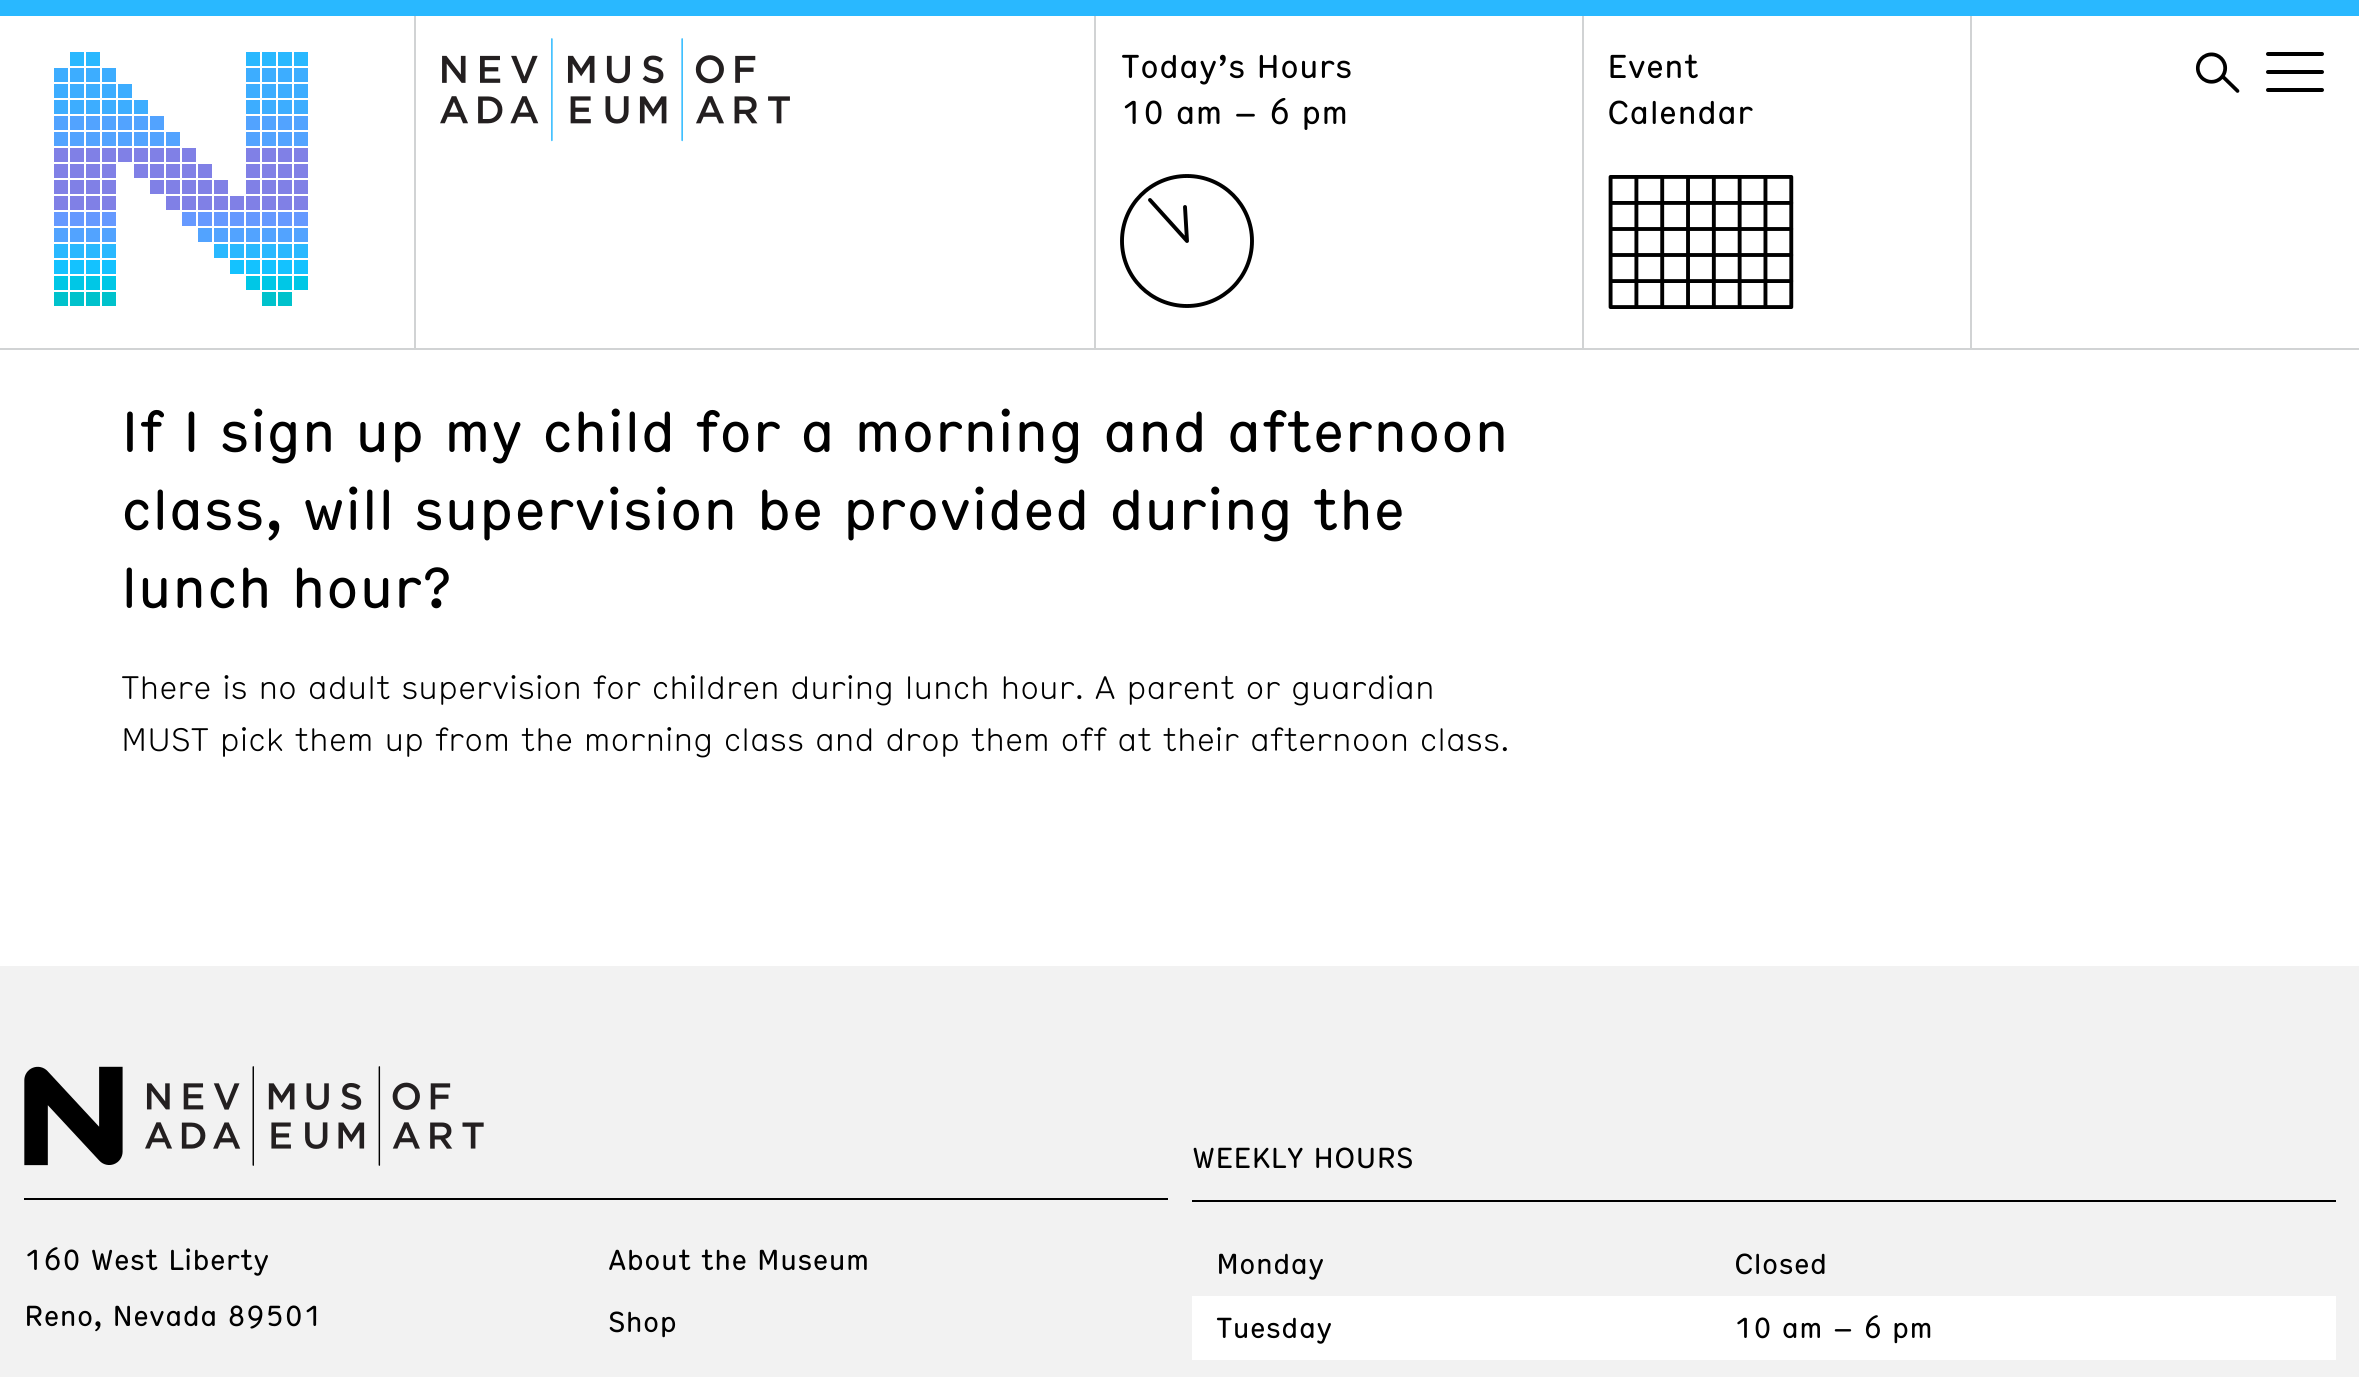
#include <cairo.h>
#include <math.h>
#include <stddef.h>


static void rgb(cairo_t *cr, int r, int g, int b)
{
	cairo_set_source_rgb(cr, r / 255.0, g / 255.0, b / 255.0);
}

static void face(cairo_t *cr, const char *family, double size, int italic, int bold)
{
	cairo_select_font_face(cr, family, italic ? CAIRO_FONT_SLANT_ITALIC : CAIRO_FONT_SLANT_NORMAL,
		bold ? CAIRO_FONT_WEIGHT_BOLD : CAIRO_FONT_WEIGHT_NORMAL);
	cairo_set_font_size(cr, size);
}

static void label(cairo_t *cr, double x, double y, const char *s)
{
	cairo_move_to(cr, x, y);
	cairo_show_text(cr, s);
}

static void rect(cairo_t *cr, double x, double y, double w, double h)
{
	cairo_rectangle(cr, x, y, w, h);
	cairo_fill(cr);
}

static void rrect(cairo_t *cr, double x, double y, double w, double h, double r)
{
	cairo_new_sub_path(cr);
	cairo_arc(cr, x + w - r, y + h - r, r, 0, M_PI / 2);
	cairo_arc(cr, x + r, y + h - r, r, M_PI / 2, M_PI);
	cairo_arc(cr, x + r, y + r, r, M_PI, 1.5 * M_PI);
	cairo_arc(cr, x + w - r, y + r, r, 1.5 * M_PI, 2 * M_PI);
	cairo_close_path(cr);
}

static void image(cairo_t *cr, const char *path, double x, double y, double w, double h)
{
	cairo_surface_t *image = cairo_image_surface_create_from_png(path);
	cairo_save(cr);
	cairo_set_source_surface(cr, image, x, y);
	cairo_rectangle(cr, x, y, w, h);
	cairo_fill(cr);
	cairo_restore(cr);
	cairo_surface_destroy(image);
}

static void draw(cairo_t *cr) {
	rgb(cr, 255, 255, 255);
	cairo_paint(cr);
	rgb(cr, 41, 184, 255);
	rect(cr, 0, 0, 2359, 16);
	rgb(cr, 209, 211, 212);
	rect(cr, 0, 348, 2359, 2);
	image(cr, "image0.png", 54, 52, 254, 254);
	rect(cr, 414, 16, 2, 332);
	image(cr, "image1.png", 440, 38, 350, 104);
	rect(cr, 1094, 16, 2, 332);
	face(cr, "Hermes", 32, 0, 0);
	rgb(cr, 0, 0, 0);
	label(cr, 1121, 78, "Today’s Hours");
	label(cr, 1121, 124, "10 am – 6 pm");
	cairo_new_path(cr);
	cairo_move_to(cr, 1187, 241);
	cairo_line_to(cr, 1185, 207);
	cairo_move_to(cr, 1187, 241);
	cairo_line_to(cr, 1150, 200);
	cairo_set_line_width(cr, 3.9);
	cairo_set_line_cap(cr, CAIRO_LINE_CAP_ROUND);
	cairo_set_line_join(cr, CAIRO_LINE_JOIN_ROUND);
	cairo_stroke(cr);
	cairo_new_path(cr);
	cairo_move_to(cr, 1187, 306);
	cairo_curve_to(cr, 1223, 306, 1252, 277, 1252, 241);
	cairo_curve_to(cr, 1252, 205, 1223, 176, 1187, 176);
	cairo_curve_to(cr, 1151, 176, 1122, 205, 1122, 241);
	cairo_curve_to(cr, 1122, 277, 1151, 306, 1187, 306);
	cairo_close_path(cr);
	cairo_set_line_cap(cr, CAIRO_LINE_CAP_BUTT);
	cairo_set_line_join(cr, CAIRO_LINE_JOIN_MITER);
	cairo_stroke(cr);
	rgb(cr, 209, 211, 212);
	rect(cr, 1582, 16, 2, 332);
	rgb(cr, 0, 0, 0);
	label(cr, 1607, 78, "Event");
	label(cr, 1607, 124, "Calendar");
	image(cr, "image2.png", 1608, 175, 186, 134);
	rgb(cr, 209, 211, 212);
	rect(cr, 1970, 16, 2, 332);
	image(cr, "image3.png", 2195, 52, 45, 41);
	rgb(cr, 0, 0, 0);
	rrect(cr, 2266, 52, 58, 4, 2);
	cairo_fill(cr);
	rrect(cr, 2266, 70, 58, 4, 2);
	cairo_fill(cr);
	rrect(cr, 2266, 88, 58, 4, 2);
	cairo_fill(cr);
	face(cr, "Hermes", 56, 0, 0);
	label(cr, 121, 452, "If I sign up my child for a morning and afternoon");
	label(cr, 121, 530, "class, will supervision be provided during the");
	label(cr, 121, 608, "lunch hour?");
	face(cr, "Hermes Light", 31.5, 0, 0);
	label(cr, 121, 699, "There is no adult supervision for children during lunch hour. A parent or guardian");
	label(cr, 121, 751, "MUST pick them up from the morning class and drop them off at their afternoon class.");
	rgb(cr, 242, 242, 242);
	rect(cr, 0, 966, 2359, 411);
	rgb(cr, 0, 0, 0);
	rect(cr, 24, 1198, 1144, 2);
	image(cr, "image4.png", 24, 1066, 460, 100);
	face(cr, "Hermes", 28, 0, 0);
	label(cr, 24, 1270, "160 West Liberty");
	label(cr, 24, 1326, "Reno, Nevada 89501");
	label(cr, 608, 1270, "About the Museum");
	label(cr, 608, 1332, "Shop");
	rect(cr, 1192, 1200, 1144, 2);
	label(cr, 1192, 1168, "WEEKLY HOURS");
	label(cr, 1216, 1274, "Monday");
	label(cr, 1734, 1274, "Closed");
	rgb(cr, 255, 255, 255);
	rect(cr, 1192, 1296, 1144, 64);
	rgb(cr, 0, 0, 0);
	label(cr, 1216, 1338, "Tuesday");
	label(cr, 1734, 1338, "10 am – 6 pm");
}

int main(void) {
	cairo_surface_t *surface = cairo_image_surface_create(CAIRO_FORMAT_RGB24, 2359, 1377);
	cairo_t *cr = cairo_create(surface);
	cairo_font_options_t *options = cairo_font_options_create();
	cairo_font_options_set_hint_metrics(options, CAIRO_HINT_METRICS_OFF);
	cairo_font_options_set_hint_style(options, CAIRO_HINT_STYLE_NONE);
	cairo_set_font_options(cr, options);
	cairo_set_miter_limit(cr, 4);
	draw(cr);
	cairo_surface_write_to_png(surface, "render.png");
	cairo_font_options_destroy(options);
	cairo_destroy(cr);
	cairo_surface_destroy(surface);
	return 0;
}
